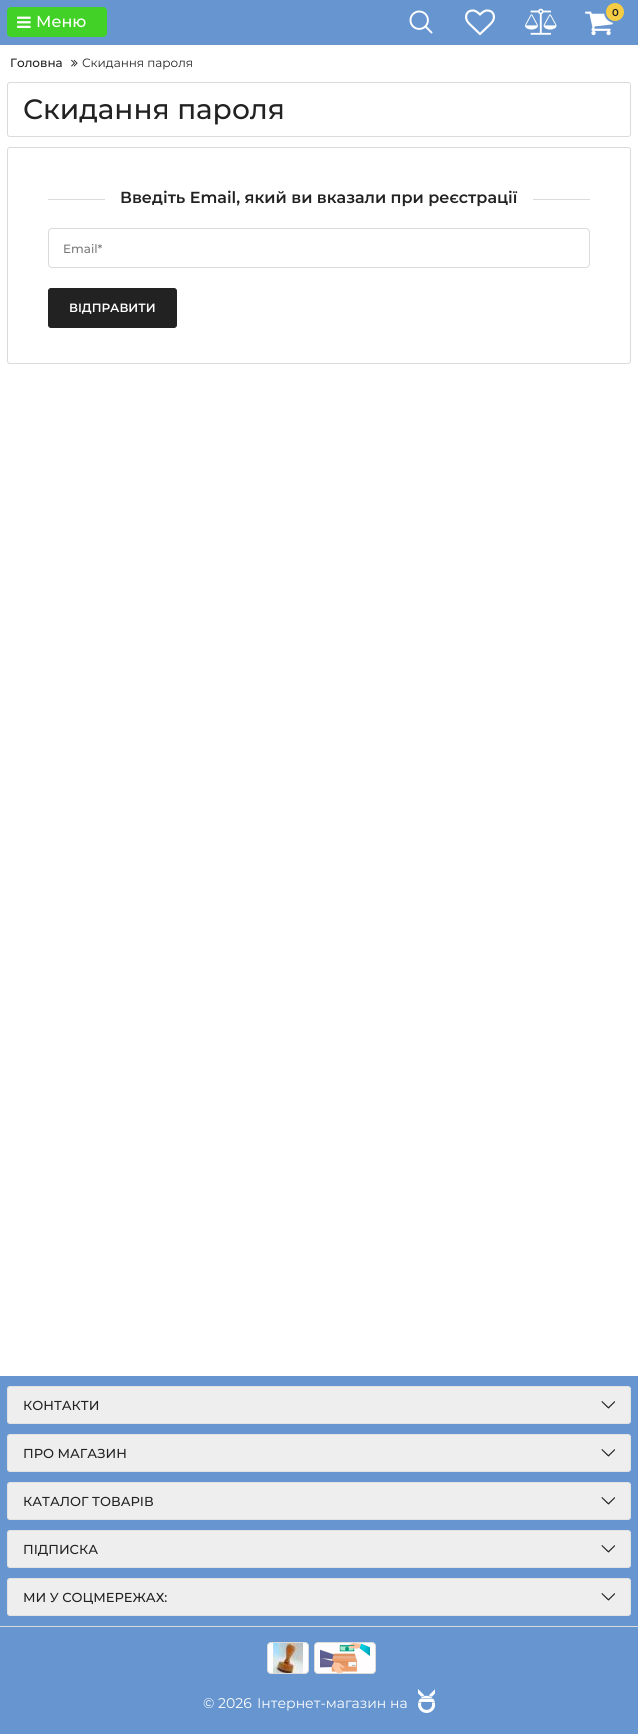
#include <cairo.h>
#include <math.h>
#include <stddef.h>


static void rgb(cairo_t *cr, int r, int g, int b)
{
	cairo_set_source_rgb(cr, r / 255.0, g / 255.0, b / 255.0);
}

static void face(cairo_t *cr, const char *family, double size, int italic, int bold)
{
	cairo_select_font_face(cr, family, italic ? CAIRO_FONT_SLANT_ITALIC : CAIRO_FONT_SLANT_NORMAL,
		bold ? CAIRO_FONT_WEIGHT_BOLD : CAIRO_FONT_WEIGHT_NORMAL);
	cairo_set_font_size(cr, size);
}

static void label(cairo_t *cr, double x, double y, const char *s)
{
	cairo_move_to(cr, x, y);
	cairo_show_text(cr, s);
}

static void rect(cairo_t *cr, double x, double y, double w, double h)
{
	cairo_rectangle(cr, x, y, w, h);
	cairo_fill(cr);
}

static void rrect(cairo_t *cr, double x, double y, double w, double h, double r)
{
	cairo_new_sub_path(cr);
	cairo_arc(cr, x + w - r, y + h - r, r, 0, M_PI / 2);
	cairo_arc(cr, x + r, y + h - r, r, M_PI / 2, M_PI);
	cairo_arc(cr, x + r, y + r, r, M_PI, 1.5 * M_PI);
	cairo_arc(cr, x + w - r, y + r, r, 1.5 * M_PI, 2 * M_PI);
	cairo_close_path(cr);
}

static void image(cairo_t *cr, const char *path, double x, double y, double w, double h)
{
	cairo_surface_t *image = cairo_image_surface_create_from_png(path);
	cairo_save(cr);
	cairo_set_source_surface(cr, image, x, y);
	cairo_rectangle(cr, x, y, w, h);
	cairo_fill(cr);
	cairo_restore(cr);
	cairo_surface_destroy(image);
}

static void draw(cairo_t *cr) {
	rgb(cr, 255, 255, 255);
	cairo_paint(cr);
	rgb(cr, 102, 149, 207);
	rect(cr, 0, 0, 638, 45);
	image(cr, "image0.png", 409, 10, 24, 24);
	image(cr, "image1.png", 465, 9, 30, 27);
	image(cr, "image2.png", 525, 8, 32, 27);
	image(cr, "image3.png", 585, 11, 28, 25);
	rgb(cr, 245, 204, 67);
	cairo_arc(cr, 615, 12, 10, 0, 2 * M_PI);
	cairo_fill_preserve(cr);
	rgb(cr, 102, 149, 207);
	cairo_stroke(cr);
	face(cr, "Montserrat SemiBold", 10, 0, 0);
	rgb(cr, 34, 34, 34);
	label(cr, 612, 16, "0");
	rgb(cr, 66, 209, 38);
	rrect(cr, 7, 7, 100, 30, 4);
	cairo_fill(cr);
	image(cr, "image4.png", 17, 16, 14, 12);
	face(cr, "Montserrat Medium", 16, 0, 0);
	rgb(cr, 255, 255, 255);
	label(cr, 36, 27, "Меню");
	face(cr, "Montserrat Medium", 12, 0, 0);
	rgb(cr, 34, 34, 34);
	label(cr, 10, 67, "Головна");
	image(cr, "image5.png", 71, 59, 7, 8);
	face(cr, "Montserrat", 12, 0, 0);
	label(cr, 82, 67, "Скидання пароля");
	rrect(cr, 7.5, 82.5, 623, 54, 2.5);
	rgb(cr, 219, 219, 219);
	cairo_set_line_width(cr, 1);
	cairo_stroke(cr);
	face(cr, "Montserrat Medium", 28, 0, 0);
	rgb(cr, 34, 34, 34);
	label(cr, 23, 119, "Скидання пароля");
	rrect(cr, 7.5, 147.5, 623, 216, 2.5);
	rgb(cr, 219, 219, 219);
	cairo_stroke(cr);
	rect(cr, 48, 199, 542, 1);
	rgb(cr, 255, 255, 255);
	rect(cr, 105, 199, 428, 1);
	face(cr, "Montserrat SemiBold", 16, 0, 0);
	rgb(cr, 34, 34, 34);
	label(cr, 120, 203, "Введіть Email, який ви вказали при реєстрації");
	rrect(cr, 48.5, 228.5, 541, 39, 3.5);
	rgb(cr, 219, 219, 219);
	cairo_stroke(cr);
	face(cr, "Montserrat Medium", 12, 0, 0);
	rgb(cr, 122, 122, 122);
	label(cr, 63, 253, "Email*");
	rgb(cr, 34, 34, 34);
	rrect(cr, 48.5, 288.5, 128, 39, 2.5);
	cairo_fill_preserve(cr);
	cairo_stroke(cr);
	face(cr, "Montserrat SemiBold", 12, 0, 0);
	rgb(cr, 255, 255, 255);
	label(cr, 69, 312, "ВІДПРАВИТИ");
	rgb(cr, 102, 149, 207);
	rect(cr, 0, 1376, 638, 358);
	rgb(cr, 238, 238, 238);
	rrect(cr, 7.5, 1386.5, 623, 37, 2.5);
	cairo_fill_preserve(cr);
	rgb(cr, 226, 226, 226);
	cairo_stroke(cr);
	face(cr, "Montserrat Medium", 13, 0, 0);
	rgb(cr, 34, 34, 34);
	label(cr, 23, 1410, "КОНТАКТИ");
	image(cr, "image6.png", 601, 1401, 14, 8);
	rgb(cr, 238, 238, 238);
	rrect(cr, 7.5, 1434.5, 623, 37, 2.5);
	cairo_fill_preserve(cr);
	rgb(cr, 226, 226, 226);
	cairo_stroke(cr);
	rgb(cr, 34, 34, 34);
	label(cr, 23, 1458, "ПРО МАГАЗИН");
	image(cr, "image6.png", 601, 1449, 14, 8);
	rgb(cr, 238, 238, 238);
	rrect(cr, 7.5, 1482.5, 623, 37, 2.5);
	cairo_fill_preserve(cr);
	rgb(cr, 226, 226, 226);
	cairo_stroke(cr);
	rgb(cr, 34, 34, 34);
	label(cr, 23, 1506, "КАТАЛОГ ТОВАРІВ");
	image(cr, "image6.png", 601, 1497, 14, 8);
	rgb(cr, 238, 238, 238);
	rrect(cr, 7.5, 1530.5, 623, 37, 2.5);
	cairo_fill_preserve(cr);
	rgb(cr, 226, 226, 226);
	cairo_stroke(cr);
	rgb(cr, 34, 34, 34);
	label(cr, 23, 1554, "ПІДПИСКА");
	image(cr, "image6.png", 601, 1545, 14, 8);
	rgb(cr, 238, 238, 238);
	rrect(cr, 7.5, 1578.5, 623, 37, 2.5);
	cairo_fill_preserve(cr);
	rgb(cr, 226, 226, 226);
	cairo_stroke(cr);
	rgb(cr, 34, 34, 34);
	label(cr, 23, 1602, "МИ У СОЦМЕРЕЖАХ:");
	image(cr, "image6.png", 601, 1593, 14, 8);
	rgb(cr, 219, 219, 219);
	rect(cr, 0, 1626, 638, 1);
	rgb(cr, 255, 253, 253);
	rrect(cr, 267.5, 1642.5, 41, 31, 3.5);
	cairo_fill_preserve(cr);
	rgb(cr, 219, 219, 219);
	cairo_stroke(cr);
	image(cr, "image7.png", 273, 1643, 30, 30);
	rgb(cr, 255, 253, 253);
	rrect(cr, 314.5, 1642.5, 61, 31, 3.5);
	cairo_fill_preserve(cr);
	rgb(cr, 219, 219, 219);
	cairo_stroke(cr);
	image(cr, "image8.png", 320, 1643, 50, 30);
	face(cr, "Montserrat", 14, 0, 0);
	rgb(cr, 255, 255, 255);
	label(cr, 203, 1708, "© 2026");
	label(cr, 257, 1708, "Інтернет-магазин на");
	image(cr, "image9.png", 418, 1689, 17, 24);
}

int main(void) {
	cairo_surface_t *surface = cairo_image_surface_create(CAIRO_FORMAT_RGB24, 638, 1734);
	cairo_t *cr = cairo_create(surface);
	cairo_font_options_t *options = cairo_font_options_create();
	cairo_font_options_set_hint_metrics(options, CAIRO_HINT_METRICS_OFF);
	cairo_font_options_set_hint_style(options, CAIRO_HINT_STYLE_NONE);
	cairo_set_font_options(cr, options);
	cairo_set_miter_limit(cr, 4);
	draw(cr);
	cairo_surface_write_to_png(surface, "render.png");
	cairo_font_options_destroy(options);
	cairo_destroy(cr);
	cairo_surface_destroy(surface);
	return 0;
}
